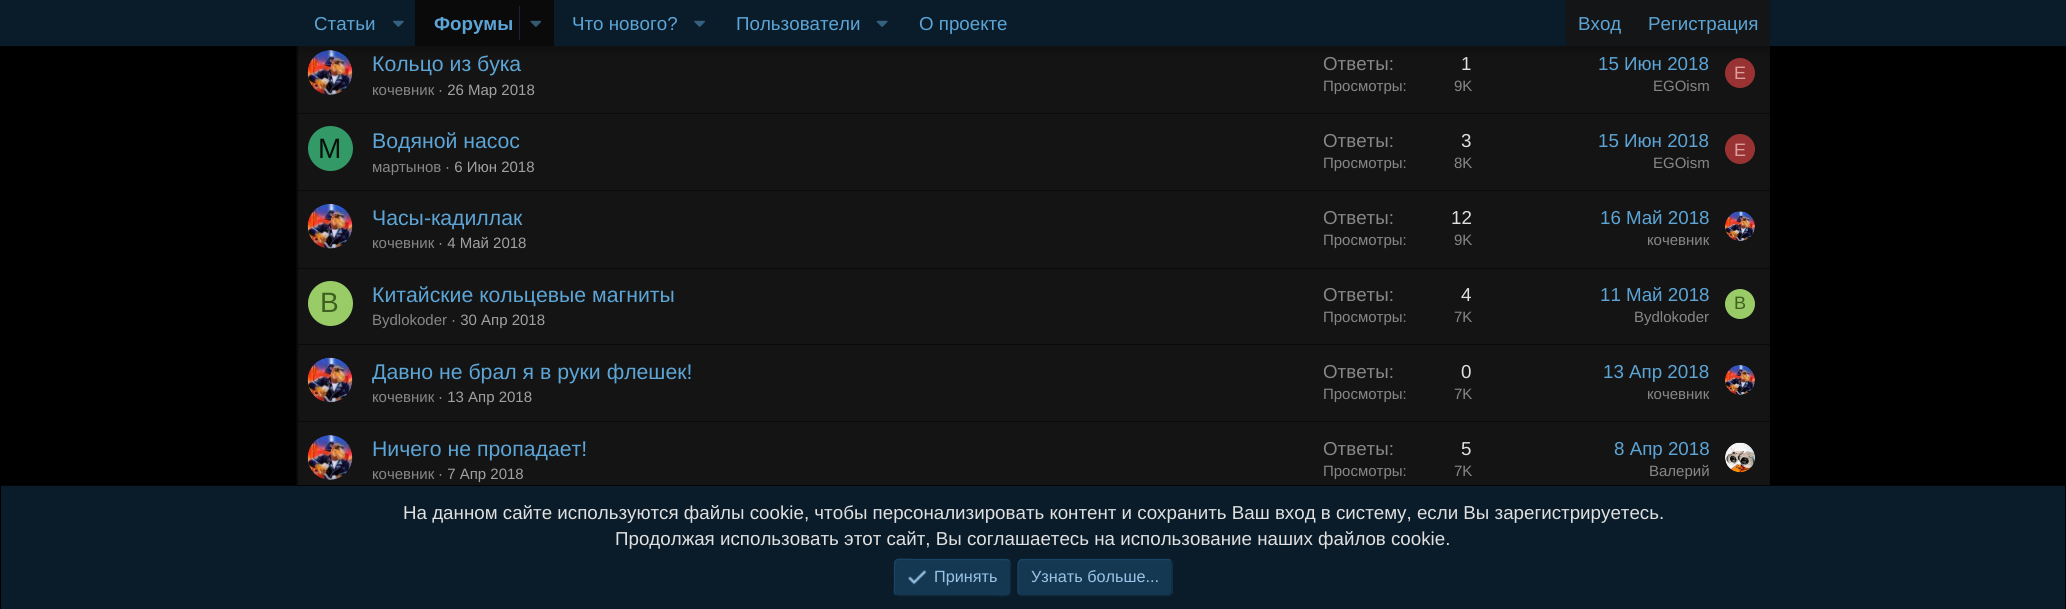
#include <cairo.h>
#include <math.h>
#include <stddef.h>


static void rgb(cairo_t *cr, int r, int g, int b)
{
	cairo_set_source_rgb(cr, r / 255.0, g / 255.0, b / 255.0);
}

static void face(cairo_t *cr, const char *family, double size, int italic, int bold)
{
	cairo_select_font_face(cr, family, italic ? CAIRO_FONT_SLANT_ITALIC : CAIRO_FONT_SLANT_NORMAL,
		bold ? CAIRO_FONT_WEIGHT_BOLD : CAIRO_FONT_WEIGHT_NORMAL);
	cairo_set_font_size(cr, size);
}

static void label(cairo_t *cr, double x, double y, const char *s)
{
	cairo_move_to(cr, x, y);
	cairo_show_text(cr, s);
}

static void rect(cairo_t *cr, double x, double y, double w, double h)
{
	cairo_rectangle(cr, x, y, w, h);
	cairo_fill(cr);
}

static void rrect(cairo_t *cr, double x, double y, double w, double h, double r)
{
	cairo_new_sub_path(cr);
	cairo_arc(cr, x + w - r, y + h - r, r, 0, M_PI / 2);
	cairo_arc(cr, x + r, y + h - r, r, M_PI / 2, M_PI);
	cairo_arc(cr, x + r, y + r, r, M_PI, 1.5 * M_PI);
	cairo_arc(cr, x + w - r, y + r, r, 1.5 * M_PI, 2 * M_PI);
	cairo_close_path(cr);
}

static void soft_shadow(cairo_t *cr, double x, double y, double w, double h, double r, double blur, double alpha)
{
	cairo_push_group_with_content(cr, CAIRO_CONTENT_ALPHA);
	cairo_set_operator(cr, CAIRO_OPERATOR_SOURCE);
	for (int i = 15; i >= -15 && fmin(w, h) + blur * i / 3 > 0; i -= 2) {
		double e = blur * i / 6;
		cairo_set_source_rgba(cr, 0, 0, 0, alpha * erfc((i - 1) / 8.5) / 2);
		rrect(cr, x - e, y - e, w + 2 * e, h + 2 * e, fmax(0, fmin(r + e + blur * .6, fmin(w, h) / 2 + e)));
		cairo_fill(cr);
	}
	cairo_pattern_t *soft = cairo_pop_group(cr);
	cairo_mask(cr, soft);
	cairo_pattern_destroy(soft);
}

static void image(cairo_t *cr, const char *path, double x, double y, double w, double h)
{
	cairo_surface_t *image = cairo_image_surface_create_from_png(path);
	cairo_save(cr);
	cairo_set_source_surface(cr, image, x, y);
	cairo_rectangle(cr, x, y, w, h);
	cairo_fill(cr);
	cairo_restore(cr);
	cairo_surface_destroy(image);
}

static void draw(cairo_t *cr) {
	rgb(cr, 0, 0, 0);
	cairo_paint(cr);
	rgb(cr, 20, 20, 20);
	rect(cr, 296, 46, 1474, 439);
	cairo_new_path(cr);
	cairo_move_to(cr, 1769.5, -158);
	cairo_curve_to(cr, 1770, -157.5, 1770.5, -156, 1770.5, -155);
	cairo_line_to(cr, 1770.5, 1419);
	cairo_curve_to(cr, 1770.5, 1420, 1770, 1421, 1769.5, 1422);
	cairo_curve_to(cr, 1768.5, 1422.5, 1767.5, 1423, 1766, 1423);
	cairo_line_to(cr, 301, 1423);
	cairo_curve_to(cr, 300, 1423, 299, 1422.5, 298, 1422);
	cairo_curve_to(cr, 297.5, 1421, 297, 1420, 297, 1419);
	cairo_line_to(cr, 297, -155);
	cairo_curve_to(cr, 297, -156, 297.5, -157.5, 298, -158);
	rgb(cr, 0, 0, 0);
	cairo_set_line_width(cr, 1.2);
	cairo_stroke(cr);
	image(cr, "image4.png", 307, 50, 46, 45);
	rgb(cr, 153, 51, 51);
	cairo_arc(cr, 1740, 73, 15, 0, 2 * M_PI);
	cairo_fill(cr);
	rgb(cr, 0, 0, 0);
	soft_shadow(cr, -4, -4, 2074, 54, 0, 5, 0.3);
	rgb(cr, 10, 28, 41);
	rect(cr, 0, 0, 2066, 46);
	face(cr, "Liberation Sans", 18.75, 0, 0);
	rgb(cr, 92, 165, 214);
	label(cr, 314, 30, "Статьи");
	image(cr, "image0.png", 393, 20, 11, 7);
	rgb(cr, 10, 10, 10);
	rect(cr, 415, 0, 139, 46);
	face(cr, "Liberation Sans", 18.75, 0, 1);
	rgb(cr, 92, 165, 214);
	label(cr, 434, 30, "Форумы");
	rgb(cr, 24, 37, 46);
	rect(cr, 519, 6, 1, 34);
	image(cr, "image1.png", 530, 20, 11, 7);
	face(cr, "Liberation Sans", 18.75, 0, 0);
	rgb(cr, 92, 165, 214);
	label(cr, 572, 30, "Что нового?");
	image(cr, "image2.png", 694, 20, 11, 7);
	label(cr, 736, 30, "Пользователи");
	image(cr, "image3.png", 876, 20, 12, 7);
	label(cr, 919, 30, "О проекте");
	rgb(cr, 19, 21, 23);
	rect(cr, 1566, 0, 204, 46);
	rgb(cr, 92, 165, 214);
	label(cr, 1578, 30, "Вход");
	rgb(cr, 20, 20, 20);
	rect(cr, 1634, 0, 1, 46);
	rgb(cr, 92, 165, 214);
	label(cr, 1648, 30, "Регистрация");
	face(cr, "Liberation Sans", 21.25, 0, 0);
	label(cr, 372, 71, "Кольцо из бука");
	face(cr, "Liberation Sans", 15, 0, 0);
	rgb(cr, 135, 135, 135);
	label(cr, 372, 95, "кочевник");
	rgb(cr, 161, 161, 161);
	label(cr, 438, 95, "· 26 Мар 2018");
	face(cr, "Liberation Sans", 18.75, 0, 0);
	rgb(cr, 135, 135, 135);
	label(cr, 1323, 70, "Ответы:");
	rgb(cr, 224, 224, 224);
	label(cr, 1461, 70, "1");
	face(cr, "Liberation Sans", 15, 0, 0);
	rgb(cr, 135, 135, 135);
	label(cr, 1323, 91, "Просмотры:");
	label(cr, 1454, 91, "9K");
	face(cr, "Liberation Sans", 18.75, 0, 0);
	rgb(cr, 92, 165, 214);
	label(cr, 1598, 70, "15 Июн 2018");
	face(cr, "Liberation Sans", 15, 0, 0);
	rgb(cr, 135, 135, 135);
	label(cr, 1653, 91, "EGOism");
	face(cr, "Liberation Sans", 18, 0, 0);
	rgb(cr, 223, 159, 159);
	label(cr, 1734, 79, "E");
	rgb(cr, 10, 10, 10);
	rect(cr, 298, 113, 1472, 1);
	rgb(cr, 51, 153, 102);
	cairo_new_path(cr);
	cairo_arc(cr, 330.5, 148.5, 22.5, 0, 2 * M_PI);
	cairo_fill(cr);
	face(cr, "Liberation Sans", 28, 0, 0);
	rgb(cr, 6, 19, 13);
	label(cr, 318, 158, "М");
	face(cr, "Liberation Sans", 21.25, 0, 0);
	rgb(cr, 92, 165, 214);
	label(cr, 372, 148, "Водяной насос");
	face(cr, "Liberation Sans", 15, 0, 0);
	rgb(cr, 135, 135, 135);
	label(cr, 372, 172, "мартынов");
	rgb(cr, 161, 161, 161);
	label(cr, 445, 172, "· 6 Июн 2018");
	face(cr, "Liberation Sans", 18.75, 0, 0);
	rgb(cr, 135, 135, 135);
	label(cr, 1323, 147, "Ответы:");
	rgb(cr, 224, 224, 224);
	label(cr, 1461, 147, "3");
	face(cr, "Liberation Sans", 15, 0, 0);
	rgb(cr, 135, 135, 135);
	label(cr, 1323, 168, "Просмотры:");
	label(cr, 1454, 168, "8K");
	face(cr, "Liberation Sans", 18.75, 0, 0);
	rgb(cr, 92, 165, 214);
	label(cr, 1598, 147, "15 Июн 2018");
	face(cr, "Liberation Sans", 15, 0, 0);
	rgb(cr, 135, 135, 135);
	label(cr, 1653, 168, "EGOism");
	rgb(cr, 153, 51, 51);
	cairo_new_path(cr);
	cairo_arc(cr, 1740, 149, 15, 0, 2 * M_PI);
	cairo_fill(cr);
	face(cr, "Liberation Sans", 18, 0, 0);
	rgb(cr, 223, 159, 159);
	label(cr, 1734, 156, "E");
	rgb(cr, 10, 10, 10);
	rect(cr, 298, 190, 1472, 1);
	image(cr, "image5.png", 307, 204, 46, 45);
	face(cr, "Liberation Sans", 21.25, 0, 0);
	rgb(cr, 92, 165, 214);
	label(cr, 372, 225, "Часы-кадиллак");
	face(cr, "Liberation Sans", 15, 0, 0);
	rgb(cr, 135, 135, 135);
	label(cr, 372, 248, "кочевник");
	rgb(cr, 161, 161, 161);
	label(cr, 438, 248, "· 4 Май 2018");
	face(cr, "Liberation Sans", 18.75, 0, 0);
	rgb(cr, 135, 135, 135);
	label(cr, 1323, 224, "Ответы:");
	rgb(cr, 224, 224, 224);
	label(cr, 1451, 224, "12");
	face(cr, "Liberation Sans", 15, 0, 0);
	rgb(cr, 135, 135, 135);
	label(cr, 1323, 245, "Просмотры:");
	label(cr, 1454, 245, "9K");
	face(cr, "Liberation Sans", 18.75, 0, 0);
	rgb(cr, 92, 165, 214);
	label(cr, 1600, 224, "16 Май 2018");
	face(cr, "Liberation Sans", 15, 0, 0);
	rgb(cr, 135, 135, 135);
	label(cr, 1647, 245, "кочевник");
	image(cr, "image6.png", 1725, 211, 30, 30);
	rgb(cr, 10, 10, 10);
	rect(cr, 298, 268, 1472, 1);
	rgb(cr, 153, 204, 102);
	cairo_arc(cr, 330.5, 303.5, 22.5, 0, 2 * M_PI);
	cairo_fill(cr);
	face(cr, "Liberation Sans", 28, 0, 0);
	rgb(cr, 64, 96, 32);
	label(cr, 320, 312, "B");
	face(cr, "Liberation Sans", 21.25, 0, 0);
	rgb(cr, 92, 165, 214);
	label(cr, 372, 302, "Китайские кольцевые магниты");
	face(cr, "Liberation Sans", 15, 0, 0);
	rgb(cr, 135, 135, 135);
	label(cr, 372, 325, "Bydlokoder");
	rgb(cr, 161, 161, 161);
	label(cr, 451, 325, "· 30 Апр 2018");
	face(cr, "Liberation Sans", 18.75, 0, 0);
	rgb(cr, 135, 135, 135);
	label(cr, 1323, 301, "Ответы:");
	rgb(cr, 224, 224, 224);
	label(cr, 1461, 301, "4");
	face(cr, "Liberation Sans", 15, 0, 0);
	rgb(cr, 135, 135, 135);
	label(cr, 1323, 322, "Просмотры:");
	label(cr, 1454, 322, "7K");
	face(cr, "Liberation Sans", 18.75, 0, 0);
	rgb(cr, 92, 165, 214);
	label(cr, 1600, 301, "11 Май 2018");
	face(cr, "Liberation Sans", 15, 0, 0);
	rgb(cr, 135, 135, 135);
	label(cr, 1634, 322, "Bydlokoder");
	rgb(cr, 153, 204, 102);
	cairo_new_path(cr);
	cairo_arc(cr, 1740, 304, 15, 0, 2 * M_PI);
	cairo_fill(cr);
	face(cr, "Liberation Sans", 18, 0, 0);
	rgb(cr, 64, 96, 32);
	label(cr, 1734, 309, "B");
	rgb(cr, 10, 10, 10);
	rect(cr, 298, 344, 1472, 1);
	image(cr, "image7.png", 307, 357, 46, 46);
	face(cr, "Liberation Sans", 21.25, 0, 0);
	rgb(cr, 92, 165, 214);
	label(cr, 372, 379, "Давно не брал я в руки флешек!");
	face(cr, "Liberation Sans", 15, 0, 0);
	rgb(cr, 135, 135, 135);
	label(cr, 372, 402, "кочевник");
	rgb(cr, 161, 161, 161);
	label(cr, 438, 402, "· 13 Апр 2018");
	face(cr, "Liberation Sans", 18.75, 0, 0);
	rgb(cr, 135, 135, 135);
	label(cr, 1323, 378, "Ответы:");
	rgb(cr, 224, 224, 224);
	label(cr, 1461, 378, "0");
	face(cr, "Liberation Sans", 15, 0, 0);
	rgb(cr, 135, 135, 135);
	label(cr, 1323, 399, "Просмотры:");
	label(cr, 1454, 399, "7K");
	face(cr, "Liberation Sans", 18.75, 0, 0);
	rgb(cr, 92, 165, 214);
	label(cr, 1603, 378, "13 Апр 2018");
	face(cr, "Liberation Sans", 15, 0, 0);
	rgb(cr, 135, 135, 135);
	label(cr, 1647, 399, "кочевник");
	image(cr, "image8.png", 1725, 365, 30, 30);
	rgb(cr, 10, 10, 10);
	rect(cr, 298, 421, 1472, 1);
	image(cr, "image4.png", 307, 435, 46, 45);
	face(cr, "Liberation Sans", 21.25, 0, 0);
	rgb(cr, 92, 165, 214);
	label(cr, 372, 456, "Ничего не пропадает!");
	face(cr, "Liberation Sans", 15, 0, 0);
	rgb(cr, 135, 135, 135);
	label(cr, 372, 479, "кочевник");
	rgb(cr, 161, 161, 161);
	label(cr, 438, 479, "· 7 Апр 2018");
	face(cr, "Liberation Sans", 18.75, 0, 0);
	rgb(cr, 135, 135, 135);
	label(cr, 1323, 455, "Ответы:");
	rgb(cr, 224, 224, 224);
	label(cr, 1461, 455, "5");
	face(cr, "Liberation Sans", 15, 0, 0);
	rgb(cr, 135, 135, 135);
	label(cr, 1323, 476, "Просмотры:");
	label(cr, 1454, 476, "7K");
	face(cr, "Liberation Sans", 18.75, 0, 0);
	rgb(cr, 92, 165, 214);
	label(cr, 1614, 455, "8 Апр 2018");
	face(cr, "Liberation Sans", 15, 0, 0);
	rgb(cr, 135, 135, 135);
	label(cr, 1649, 476, "Валерий");
	image(cr, "image9.png", 1725, 442, 30, 31);
	rgb(cr, 10, 28, 41);
	rect(cr, 1, 486, 2064, 123);
	rgb(cr, 5, 5, 5);
	rect(cr, 0, 485, 2066, 1);
	rgb(cr, 0, 0, 0);
	rect(cr, 2065, 485, 1, 1);
	rect(cr, 0, 485, 1, 1);
	face(cr, "Liberation Sans", 18.75, 0, 0);
	rgb(cr, 224, 224, 224);
	label(cr, 403, 519, "На данном сайте используются файлы cookie, чтобы персонализировать контент и сохранить Ваш вход в систему, если Вы зарегистрируетесь.");
	label(cr, 615, 545, "Продолжая использовать этот сайт, Вы соглашаетесь на использование наших файлов cookie.");
	rgb(cr, 20, 56, 82);
	rrect(cr, 894, 559, 117, 37, 5);
	cairo_fill(cr);
	cairo_new_path(cr);
	cairo_move_to(cr, 1009.5, 560.5);
	cairo_curve_to(cr, 1011.5, 562.5, 1010.5, 566, 1010.5, 568.5);
	cairo_line_to(cr, 1010.5, 577.5);
	cairo_curve_to(cr, 1010.5, 600, 1013, 595.5, 988.5, 595.5);
	cairo_line_to(cr, 899, 595.5);
	cairo_line_to(cr, 895.5, 594.5);
	rgb(cr, 15, 42, 61);
	cairo_stroke(cr);
	cairo_new_path(cr);
	cairo_move_to(cr, 895.5, 594.5);
	cairo_curve_to(cr, 893.5, 592.5, 894.5, 589, 894.5, 586.5);
	cairo_line_to(cr, 894.5, 577.5);
	cairo_curve_to(cr, 894.5, 555, 892, 559.5, 916.5, 559.5);
	cairo_line_to(cr, 1006, 559.5);
	cairo_line_to(cr, 1009.5, 560.5);
	rgb(cr, 26, 70, 102);
	cairo_stroke(cr);
	image(cr, "image10.png", 908, 570, 19, 15);
	face(cr, "Liberation Sans", 16.25, 0, 0);
	rgb(cr, 153, 196, 230);
	label(cr, 934, 582, "Принять");
	rgb(cr, 20, 56, 82);
	rrect(cr, 1018, 559, 155, 37, 5);
	cairo_fill(cr);
	cairo_new_path(cr);
	cairo_move_to(cr, 1170.5, 560.5);
	cairo_curve_to(cr, 1172.5, 562.5, 1172, 566, 1172, 568.5);
	cairo_line_to(cr, 1172, 586.5);
	cairo_curve_to(cr, 1172, 590, 1172.5, 595.5, 1167.5, 595.5);
	cairo_line_to(cr, 1021, 595.5);
	cairo_line_to(cr, 1019.5, 594.5);
	rgb(cr, 15, 42, 61);
	cairo_stroke(cr);
	cairo_new_path(cr);
	cairo_move_to(cr, 1019.5, 594.5);
	cairo_curve_to(cr, 1017.5, 592.5, 1018, 589, 1018, 586.5);
	cairo_line_to(cr, 1018, 568.5);
	cairo_curve_to(cr, 1018, 565, 1017.5, 559.5, 1022.5, 559.5);
	cairo_line_to(cr, 1169, 559.5);
	cairo_line_to(cr, 1170.5, 560.5);
	rgb(cr, 26, 70, 102);
	cairo_stroke(cr);
	rgb(cr, 153, 196, 230);
	label(cr, 1031, 582, "Узнать больше...");
}

int main(void) {
	cairo_surface_t *surface = cairo_image_surface_create(CAIRO_FORMAT_RGB24, 2066, 609);
	cairo_t *cr = cairo_create(surface);
	cairo_font_options_t *options = cairo_font_options_create();
	cairo_font_options_set_hint_metrics(options, CAIRO_HINT_METRICS_OFF);
	cairo_font_options_set_hint_style(options, CAIRO_HINT_STYLE_NONE);
	cairo_set_font_options(cr, options);
	cairo_set_miter_limit(cr, 4);
	draw(cr);
	cairo_surface_write_to_png(surface, "render.png");
	cairo_font_options_destroy(options);
	cairo_destroy(cr);
	cairo_surface_destroy(surface);
	return 0;
}
